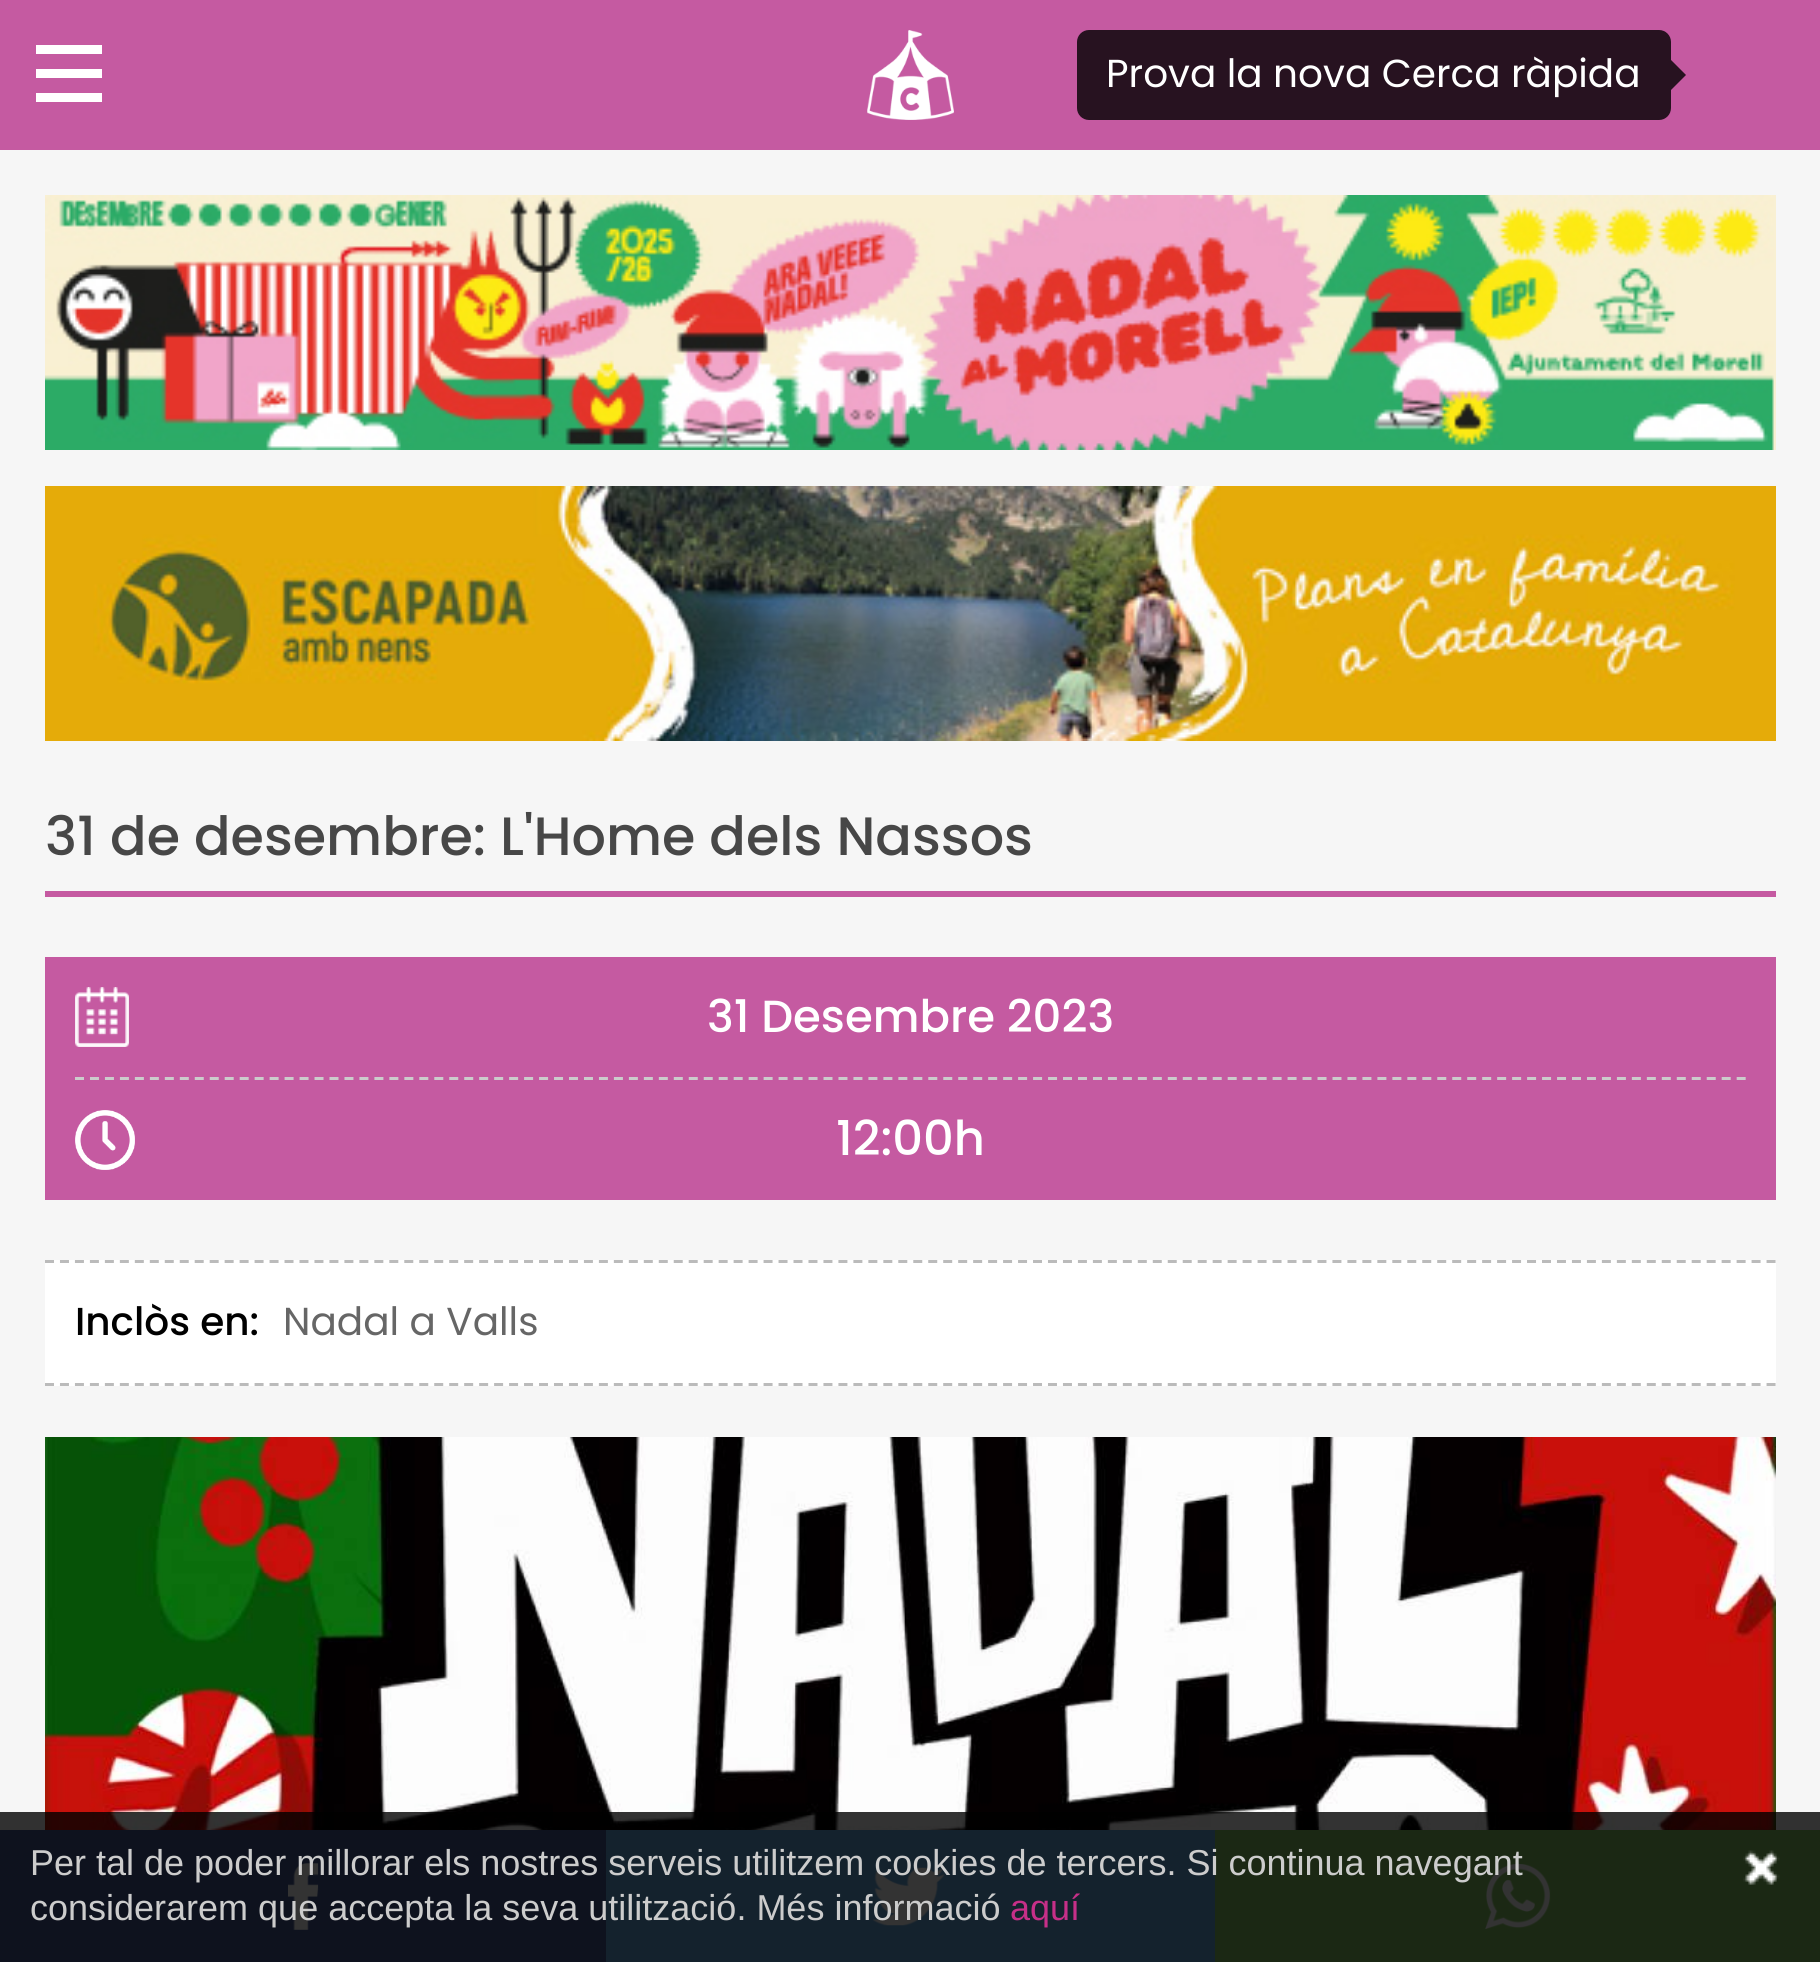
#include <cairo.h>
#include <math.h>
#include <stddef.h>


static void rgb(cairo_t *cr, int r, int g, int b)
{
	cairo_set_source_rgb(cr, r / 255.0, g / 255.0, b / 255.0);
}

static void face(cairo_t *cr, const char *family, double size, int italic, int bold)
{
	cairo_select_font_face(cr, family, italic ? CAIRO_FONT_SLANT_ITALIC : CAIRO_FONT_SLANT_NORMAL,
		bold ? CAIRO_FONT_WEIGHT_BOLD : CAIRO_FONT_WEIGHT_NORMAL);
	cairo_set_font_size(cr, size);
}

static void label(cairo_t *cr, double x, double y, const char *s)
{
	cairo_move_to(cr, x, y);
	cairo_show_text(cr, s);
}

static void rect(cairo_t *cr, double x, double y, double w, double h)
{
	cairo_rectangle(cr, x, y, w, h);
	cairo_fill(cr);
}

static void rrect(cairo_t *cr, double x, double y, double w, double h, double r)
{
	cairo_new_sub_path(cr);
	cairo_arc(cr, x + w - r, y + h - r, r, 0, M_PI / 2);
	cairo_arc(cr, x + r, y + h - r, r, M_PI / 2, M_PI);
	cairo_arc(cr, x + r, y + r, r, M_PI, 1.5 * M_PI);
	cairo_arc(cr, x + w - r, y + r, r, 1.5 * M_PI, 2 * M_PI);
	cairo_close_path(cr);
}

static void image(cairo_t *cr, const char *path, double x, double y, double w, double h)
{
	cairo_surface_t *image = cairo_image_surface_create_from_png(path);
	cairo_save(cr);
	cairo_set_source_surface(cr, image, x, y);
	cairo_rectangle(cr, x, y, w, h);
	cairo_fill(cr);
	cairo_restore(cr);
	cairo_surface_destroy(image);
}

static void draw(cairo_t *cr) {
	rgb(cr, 246, 246, 246);
	cairo_paint(cr);
	rgb(cr, 197, 90, 161);
	rect(cr, 0, 0, 1820, 150);
	rgb(cr, 255, 255, 255);
	rect(cr, 36, 45, 66, 9);
	rect(cr, 36, 69, 66, 9);
	rect(cr, 36, 93, 66, 9);
	image(cr, "image0.png", 867, 30, 87, 90);
	rgb(cr, 39, 18, 32);
	rrect(cr, 1077, 30, 594, 90, 12);
	cairo_fill(cr);
	face(cr, "Poppins", 39, 0, 0);
	rgb(cr, 255, 255, 255);
	label(cr, 1106, 87, "Prova la nova Cerca ràpida");
	rgb(cr, 39, 18, 32);
	cairo_new_path(cr);
	cairo_move_to(cr, 1671, 90);
	cairo_line_to(cr, 1671, 60);
	cairo_line_to(cr, 1686, 75);
	cairo_close_path(cr);
	cairo_fill(cr);
	image(cr, "image1.png", 45, 195, 1731, 255);
	image(cr, "image2.png", 45, 486, 1731, 255);
	rgb(cr, 197, 90, 161);
	rect(cr, 45, 891, 1731, 6);
	face(cr, "Poppins Medium", 54, 0, 0);
	rgb(cr, 71, 71, 71);
	label(cr, 45, 855, "31 de desembre: L'Home dels Nassos");
	rgb(cr, 197, 90, 161);
	rect(cr, 45, 957, 1731, 243);
	image(cr, "image3.png", 75, 987, 54, 60);
	face(cr, "Poppins Medium", 45, 0, 0);
	rgb(cr, 255, 255, 255);
	label(cr, 707, 1032, "31 Desembre 2023");
	image(cr, "image4.png", 75, 1110, 60, 60);
	cairo_new_path(cr);
	cairo_move_to(cr, 75, 1078.5);
	cairo_line_to(cr, 1746, 1078.5);
	rgb(cr, 204, 204, 204);
	cairo_set_line_width(cr, 3);
	cairo_set_dash(cr, (double[]){9, 5.97}, 2, 0);
	cairo_stroke(cr);
	face(cr, "Poppins Medium", 48, 0, 0);
	rgb(cr, 255, 255, 255);
	label(cr, 836, 1155, "12:00h");
	rect(cr, 45, 1260, 1731, 126);
	cairo_new_path(cr);
	cairo_move_to(cr, 45, 1261.5);
	cairo_line_to(cr, 1776, 1261.5);
	rgb(cr, 187, 187, 187);
	cairo_stroke(cr);
	cairo_new_path(cr);
	cairo_move_to(cr, 45, 1384.5);
	cairo_line_to(cr, 1776, 1384.5);
	cairo_stroke(cr);
	face(cr, "Poppins Medium", 39, 0, 0);
	rgb(cr, 0, 0, 0);
	label(cr, 75, 1335, "Inclòs en:");
	face(cr, "Poppins", 39, 0, 0);
	rgb(cr, 102, 102, 102);
	label(cr, 283, 1335, "Nadal a Valls");
	image(cr, "image5.png", 45, 1437, 1731, 393);
	rgb(cr, 69, 90, 151);
	rect(cr, 0, 1830, 606, 132);
	image(cr, "image6.png", 288, 1863, 31, 67);
	rgb(cr, 99, 168, 224);
	rect(cr, 606, 1830, 609, 132);
	image(cr, "image7.png", 872, 1867, 73, 59);
	rgb(cr, 135, 202, 99);
	rect(cr, 1215, 1830, 605, 132);
	image(cr, "image8.png", 1485, 1864, 66, 65);
	cairo_set_source_rgba(cr, 0, 0, 0, 0.8);
	rect(cr, 0, 1812, 1820, 150);
	face(cr, "Liberation Sans", 36, 0, 0);
	rgb(cr, 204, 204, 204);
	label(cr, 30, 1875, "Per tal de poder millorar els nostres serveis utilitzem cookies de tercers. Si continua navegant");
	image(cr, "image9.png", 1743, 1850, 37, 35);
	label(cr, 30, 1920, "considerarem que accepta la seva utilització. Més informació");
	rgb(cr, 198, 47, 136);
	label(cr, 1010, 1920, "aquí");
}

int main(void) {
	cairo_surface_t *surface = cairo_image_surface_create(CAIRO_FORMAT_RGB24, 1820, 1962);
	cairo_t *cr = cairo_create(surface);
	cairo_font_options_t *options = cairo_font_options_create();
	cairo_font_options_set_hint_metrics(options, CAIRO_HINT_METRICS_OFF);
	cairo_font_options_set_hint_style(options, CAIRO_HINT_STYLE_NONE);
	cairo_set_font_options(cr, options);
	cairo_set_miter_limit(cr, 4);
	draw(cr);
	cairo_surface_write_to_png(surface, "render.png");
	cairo_font_options_destroy(options);
	cairo_destroy(cr);
	cairo_surface_destroy(surface);
	return 0;
}
